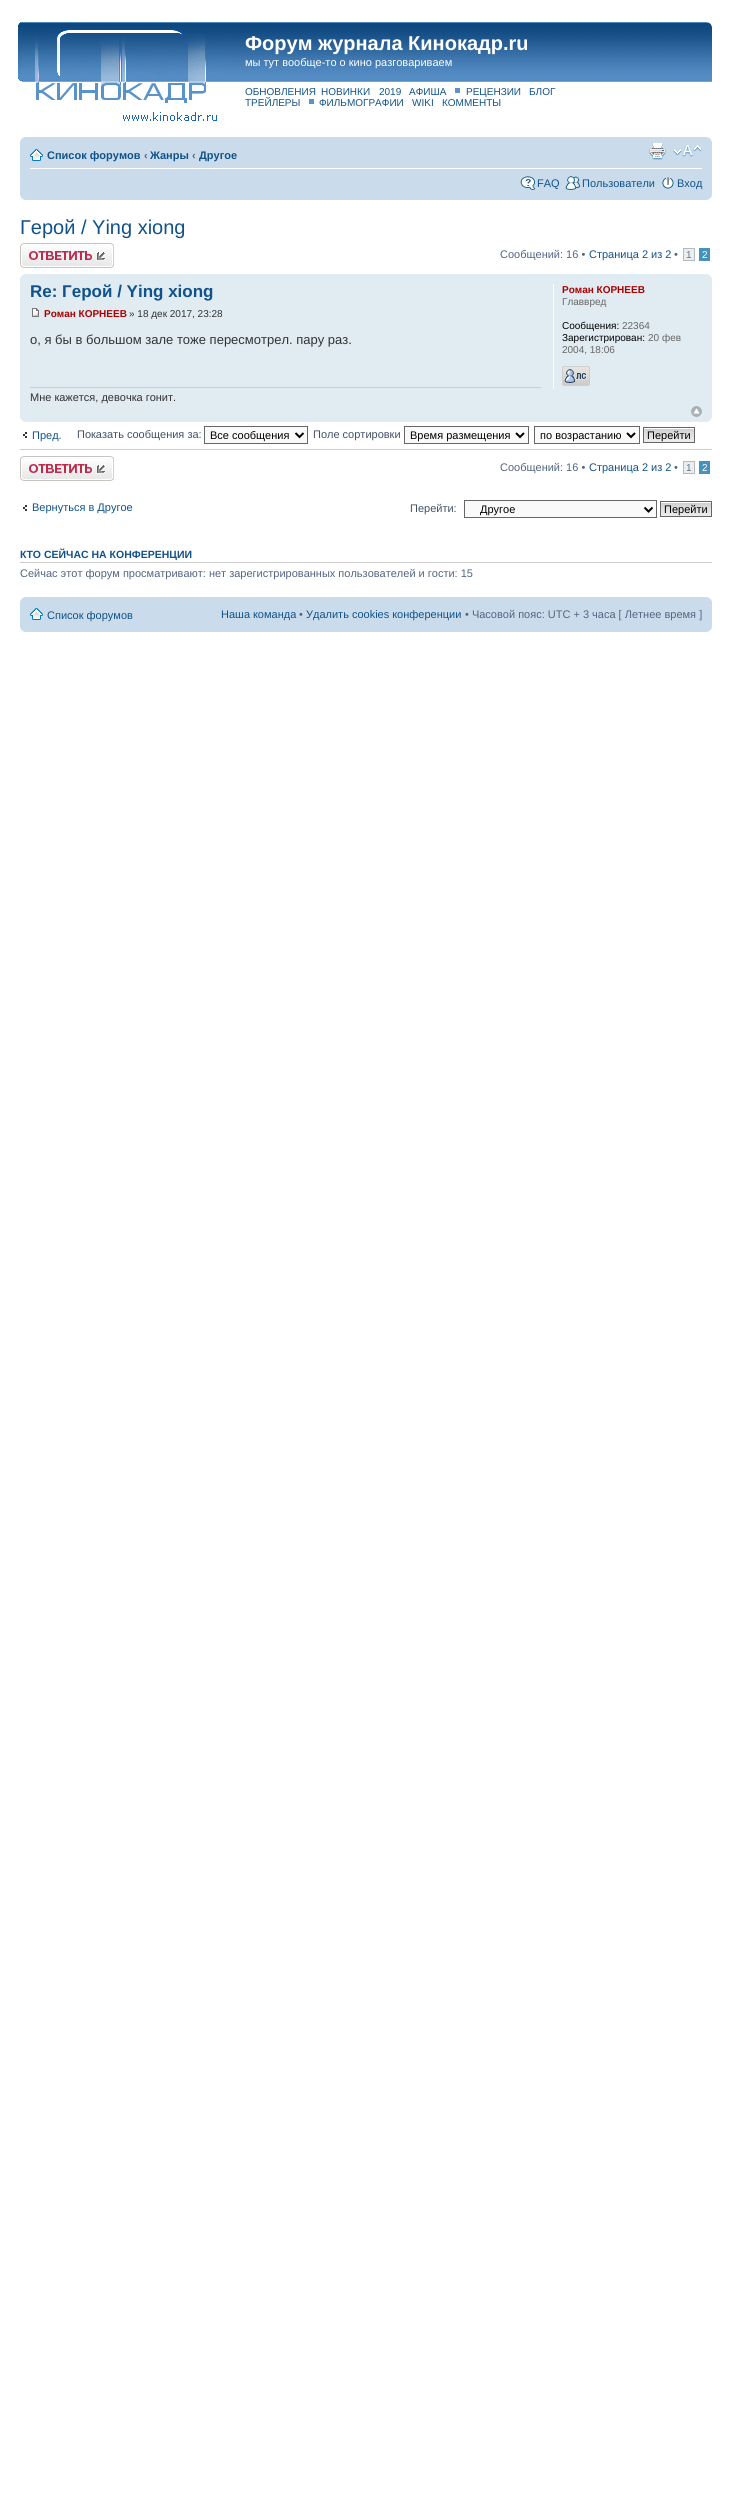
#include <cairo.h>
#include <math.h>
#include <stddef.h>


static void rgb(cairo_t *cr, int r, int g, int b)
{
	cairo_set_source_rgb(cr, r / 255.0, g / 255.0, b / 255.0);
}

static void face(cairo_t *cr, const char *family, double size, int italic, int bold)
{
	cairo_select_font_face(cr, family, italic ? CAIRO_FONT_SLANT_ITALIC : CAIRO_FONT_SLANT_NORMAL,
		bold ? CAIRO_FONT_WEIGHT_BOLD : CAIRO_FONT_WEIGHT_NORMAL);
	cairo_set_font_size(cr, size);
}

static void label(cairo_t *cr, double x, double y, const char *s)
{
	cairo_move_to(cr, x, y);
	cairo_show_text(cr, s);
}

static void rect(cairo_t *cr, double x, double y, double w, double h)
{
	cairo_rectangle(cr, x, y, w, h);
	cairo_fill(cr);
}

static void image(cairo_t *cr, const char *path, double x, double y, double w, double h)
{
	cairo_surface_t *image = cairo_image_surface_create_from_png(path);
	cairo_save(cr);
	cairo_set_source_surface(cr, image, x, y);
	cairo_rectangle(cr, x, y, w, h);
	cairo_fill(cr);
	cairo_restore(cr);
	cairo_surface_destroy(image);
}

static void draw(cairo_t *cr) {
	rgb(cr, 255, 255, 255);
	cairo_paint(cr);
	image(cr, "image0.png", 225, 22, 487, 60);
	image(cr, "image1.png", 706, 22, 6, 5);
	image(cr, "image2.png", 18, 22, 207, 102);
	face(cr, "Liberation Sans", 20, 0, 1);
	rgb(cr, 255, 255, 255);
	label(cr, 245, 50, "Форум журнала Кинокадр.ru");
	face(cr, "Liberation Sans", 11, 0, 0);
	label(cr, 245, 66, "мы тут вообще-то о кино разговариваем");
	face(cr, "Liberation Sans", 10, 0, 0);
	rgb(cr, 16, 82, 137);
	label(cr, 245, 95, "ОБНОВЛЕНИЯ");
	label(cr, 321, 95, "НОВИНКИ");
	label(cr, 379, 95, "2019");
	label(cr, 409, 95, "АФИША");
	label(cr, 466, 95, "РЕЦЕНЗИИ");
	rgb(cr, 90, 146, 202);
	rect(cr, 455, 88, 5, 5);
	rgb(cr, 16, 82, 137);
	label(cr, 529, 95, "БЛОГ");
	label(cr, 245, 106, "ТРЕЙЛЕРЫ");
	label(cr, 319, 106, "ФИЛЬМОГРАФИИ");
	rgb(cr, 90, 146, 202);
	rect(cr, 309, 99, 5, 5);
	rgb(cr, 16, 82, 137);
	label(cr, 412, 106, "WIKI");
	label(cr, 442, 106, "КОММЕНТЫ");
	rgb(cr, 202, 220, 235);
	rect(cr, 20, 137, 692, 63);
	image(cr, "image3.png", 20, 137, 5, 5);
	image(cr, "image4.png", 707, 137, 5, 5);
	rgb(cr, 255, 255, 255);
	rect(cr, 30, 168, 672, 1);
	image(cr, "image5.png", 30, 149, 13, 12);
	face(cr, "Liberation Sans", 11, 0, 1);
	rgb(cr, 16, 82, 137);
	label(cr, 47, 159, "Список форумов");
	rgb(cr, 83, 100, 130);
	label(cr, 144, 159, "‹");
	rgb(cr, 16, 82, 137);
	label(cr, 150, 159, "Жанры");
	rgb(cr, 83, 100, 130);
	label(cr, 192, 159, "‹");
	rgb(cr, 16, 82, 137);
	label(cr, 199, 159, "Другое");
	image(cr, "image6.png", 649, 143, 17, 17);
	image(cr, "image7.png", 673, 145, 29, 12);
	image(cr, "image8.png", 520, 176, 16, 14);
	face(cr, "Liberation Sans", 11, 0, 0);
	label(cr, 537, 187, "FAQ");
	image(cr, "image9.png", 565, 176, 16, 14);
	label(cr, 582, 187, "Пользователи");
	image(cr, "image10.png", 662, 177, 12, 12);
	label(cr, 677, 187, "Вход");
	image(cr, "image11.png", 20, 195, 5, 5);
	image(cr, "image12.png", 707, 195, 5, 5);
	face(cr, "Liberation Sans", 20, 0, 0);
	label(cr, 20, 234, "Герой / Ying xiong");
	image(cr, "image13.png", 20, 243, 94, 25);
	face(cr, "Liberation Sans", 11, 0, 0);
	rgb(cr, 83, 100, 130);
	label(cr, 500, 258, "Сообщений: 16 •");
	rgb(cr, 16, 82, 137);
	label(cr, 589, 258, "Страница 2 из 2");
	rgb(cr, 83, 100, 130);
	label(cr, 674, 258, "•");
	rgb(cr, 236, 237, 238);
	cairo_rectangle(cr, 683.5, 248.5, 11, 12);
	cairo_fill_preserve(cr);
	rgb(cr, 180, 186, 192);
	cairo_set_line_width(cr, 1);
	cairo_stroke(cr);
	face(cr, "Liberation Sans", 10, 0, 0);
	rgb(cr, 92, 117, 140);
	label(cr, 686, 258, "1");
	rgb(cr, 70, 146, 191);
	rect(cr, 699, 248, 11, 13);
	rgb(cr, 255, 255, 255);
	label(cr, 702, 258, "2");
	rgb(cr, 225, 235, 242);
	rect(cr, 20, 274, 692, 148);
	image(cr, "image14.png", 20, 274, 5, 5);
	image(cr, "image15.png", 707, 274, 5, 5);
	face(cr, "Liberation Sans", 17, 0, 1);
	rgb(cr, 16, 82, 137);
	label(cr, 30, 297, "Re: Герой / Ying xiong");
	image(cr, "image16.png", 32, 308, 7, 9);
	face(cr, "Liberation Sans", 10, 0, 1);
	rgb(cr, 170, 0, 0);
	label(cr, 44, 317, "Роман КОРНЕЕВ");
	face(cr, "Liberation Sans", 10, 0, 0);
	rgb(cr, 51, 51, 51);
	label(cr, 129, 317, "» 18 дек 2017, 23:28");
	face(cr, "Liberation Sans", 13, 0, 0);
	label(cr, 30, 344, "о, я бы в большом зале тоже пересмотрел. пару раз.");
	rgb(cr, 204, 204, 204);
	rect(cr, 30, 387, 511, 1);
	face(cr, "Liberation Sans", 11, 0, 0);
	rgb(cr, 51, 51, 51);
	label(cr, 30, 401, "Мне кажется, девочка гонит.");
	rgb(cr, 255, 255, 255);
	rect(cr, 553, 284, 1, 105);
	face(cr, "Liberation Sans", 10, 0, 1);
	rgb(cr, 170, 0, 0);
	label(cr, 562, 293, "Роман КОРНЕЕВ");
	face(cr, "Liberation Sans", 10, 0, 0);
	rgb(cr, 102, 102, 102);
	label(cr, 562, 305, "Главвред");
	rgb(cr, 0, 0, 0);
	label(cr, 562, 329, "Сообщения:");
	rgb(cr, 102, 102, 102);
	label(cr, 622, 329, "22364");
	rgb(cr, 0, 0, 0);
	label(cr, 562, 341, "Зарегистрирован:");
	rgb(cr, 102, 102, 102);
	label(cr, 648, 341, "20 фев");
	label(cr, 562, 353, "2004, 18:06");
	image(cr, "image17.png", 562, 366, 28, 20);
	image(cr, "image18.png", 691, 406, 11, 11);
	image(cr, "image19.png", 20, 417, 5, 5);
	image(cr, "image20.png", 707, 417, 5, 5);
	image(cr, "image21.png", 23, 432, 4, 6);
	face(cr, "Liberation Sans", 11, 0, 0);
	rgb(cr, 16, 82, 137);
	label(cr, 32, 439, "Пред.");
	rgb(cr, 66, 80, 103);
	label(cr, 77, 438, "Показать сообщения за:");
	rgb(cr, 250, 250, 250);
	cairo_rectangle(cr, 204.5, 426.5, 103, 17);
	cairo_fill_preserve(cr);
	rgb(cr, 102, 102, 102);
	cairo_stroke(cr);
	cairo_new_path(cr);
	cairo_move_to(cr, 295.5, 433);
	cairo_line_to(cr, 299.5, 437);
	cairo_line_to(cr, 303.5, 433);
	rgb(cr, 0, 0, 0);
	cairo_set_line_width(cr, 2);
	cairo_stroke(cr);
	label(cr, 210, 439, "Все сообщения");
	rgb(cr, 66, 80, 103);
	label(cr, 313, 438, "Поле сортировки");
	rgb(cr, 250, 250, 250);
	cairo_rectangle(cr, 404.5, 426.5, 124, 17);
	cairo_fill_preserve(cr);
	rgb(cr, 102, 102, 102);
	cairo_set_line_width(cr, 1);
	cairo_stroke(cr);
	cairo_new_path(cr);
	cairo_move_to(cr, 516, 433);
	cairo_line_to(cr, 520, 437);
	cairo_line_to(cr, 524, 433);
	rgb(cr, 0, 0, 0);
	cairo_set_line_width(cr, 2);
	cairo_stroke(cr);
	label(cr, 410, 439, "Время размещения");
	rgb(cr, 250, 250, 250);
	cairo_rectangle(cr, 534.5, 426.5, 105, 17);
	cairo_fill_preserve(cr);
	rgb(cr, 102, 102, 102);
	cairo_set_line_width(cr, 1);
	cairo_stroke(cr);
	cairo_new_path(cr);
	cairo_move_to(cr, 627, 433);
	cairo_line_to(cr, 631, 437);
	cairo_line_to(cr, 635, 433);
	rgb(cr, 0, 0, 0);
	cairo_set_line_width(cr, 2);
	cairo_stroke(cr);
	label(cr, 540, 439, "по возрастанию");
	image(cr, "image22.png", 644, 428, 50, 14);
	cairo_rectangle(cr, 643.5, 427.5, 51, 15);
	rgb(cr, 102, 102, 102);
	cairo_set_line_width(cr, 1);
	cairo_stroke(cr);
	rgb(cr, 0, 0, 0);
	label(cr, 647, 439, "Перейти");
	rgb(cr, 204, 204, 204);
	rect(cr, 20, 449, 692, 1);
	image(cr, "image13.png", 20, 456, 94, 25);
	rgb(cr, 83, 100, 130);
	label(cr, 500, 471, "Сообщений: 16 •");
	rgb(cr, 16, 82, 137);
	label(cr, 589, 471, "Страница 2 из 2");
	rgb(cr, 83, 100, 130);
	label(cr, 674, 471, "•");
	rgb(cr, 236, 237, 238);
	cairo_rectangle(cr, 683.5, 461.5, 11, 12);
	cairo_fill_preserve(cr);
	rgb(cr, 180, 186, 192);
	cairo_stroke(cr);
	face(cr, "Liberation Sans", 10, 0, 0);
	rgb(cr, 92, 117, 140);
	label(cr, 686, 471, "1");
	rgb(cr, 70, 146, 191);
	rect(cr, 699, 461, 11, 13);
	rgb(cr, 255, 255, 255);
	label(cr, 702, 471, "2");
	image(cr, "image21.png", 23, 505, 4, 6);
	face(cr, "Liberation Sans", 11, 0, 0);
	rgb(cr, 16, 82, 137);
	label(cr, 32, 511, "Вернуться в Другое");
	rgb(cr, 66, 80, 103);
	label(cr, 410, 512, "Перейти:");
	rgb(cr, 250, 250, 250);
	cairo_rectangle(cr, 464.5, 500.5, 192, 17);
	cairo_fill_preserve(cr);
	rgb(cr, 102, 102, 102);
	cairo_stroke(cr);
	cairo_new_path(cr);
	cairo_move_to(cr, 644.5, 507.5);
	cairo_line_to(cr, 648.5, 511.5);
	cairo_line_to(cr, 652.5, 507.5);
	rgb(cr, 0, 0, 0);
	cairo_set_line_width(cr, 2);
	cairo_stroke(cr);
	label(cr, 480, 513, "Другое");
	image(cr, "image22.png", 661, 502, 50, 14);
	cairo_rectangle(cr, 660.5, 501.5, 51, 15);
	rgb(cr, 102, 102, 102);
	cairo_set_line_width(cr, 1);
	cairo_stroke(cr);
	rgb(cr, 0, 0, 0);
	label(cr, 664, 513, "Перейти");
	rgb(cr, 204, 204, 204);
	rect(cr, 20, 562, 692, 1);
	face(cr, "Liberation Sans", 10.5, 0, 1);
	rgb(cr, 16, 82, 137);
	label(cr, 20, 558, "КТО СЕЙЧАС НА КОНФЕРЕНЦИИ");
	face(cr, "Liberation Sans", 11, 0, 0);
	rgb(cr, 83, 100, 130);
	label(cr, 20, 577, "Сейчас этот форум просматривают: нет зарегистрированных пользователей и гости: 15");
	rgb(cr, 202, 220, 235);
	rect(cr, 20, 597, 692, 35);
	image(cr, "image3.png", 20, 597, 5, 5);
	image(cr, "image4.png", 707, 597, 5, 5);
	image(cr, "image5.png", 30, 608, 13, 12);
	rgb(cr, 16, 82, 137);
	label(cr, 47, 619, "Список форумов");
	label(cr, 221, 618, "Наша команда");
	rgb(cr, 83, 100, 130);
	label(cr, 299, 618, "•");
	rgb(cr, 16, 82, 137);
	label(cr, 306, 618, "Удалить cookies конференции");
	rgb(cr, 83, 100, 130);
	label(cr, 465, 618, "• Часовой пояс: UTC + 3 часа [ Летнее время ]");
	image(cr, "image11.png", 20, 627, 5, 5);
	image(cr, "image12.png", 707, 627, 5, 5);
}

int main(void) {
	cairo_surface_t *surface = cairo_image_surface_create(CAIRO_FORMAT_RGB24, 732, 2510);
	cairo_t *cr = cairo_create(surface);
	cairo_font_options_t *options = cairo_font_options_create();
	cairo_font_options_set_hint_metrics(options, CAIRO_HINT_METRICS_OFF);
	cairo_font_options_set_hint_style(options, CAIRO_HINT_STYLE_NONE);
	cairo_set_font_options(cr, options);
	cairo_set_miter_limit(cr, 4);
	draw(cr);
	cairo_surface_write_to_png(surface, "render.png");
	cairo_font_options_destroy(options);
	cairo_destroy(cr);
	cairo_surface_destroy(surface);
	return 0;
}
